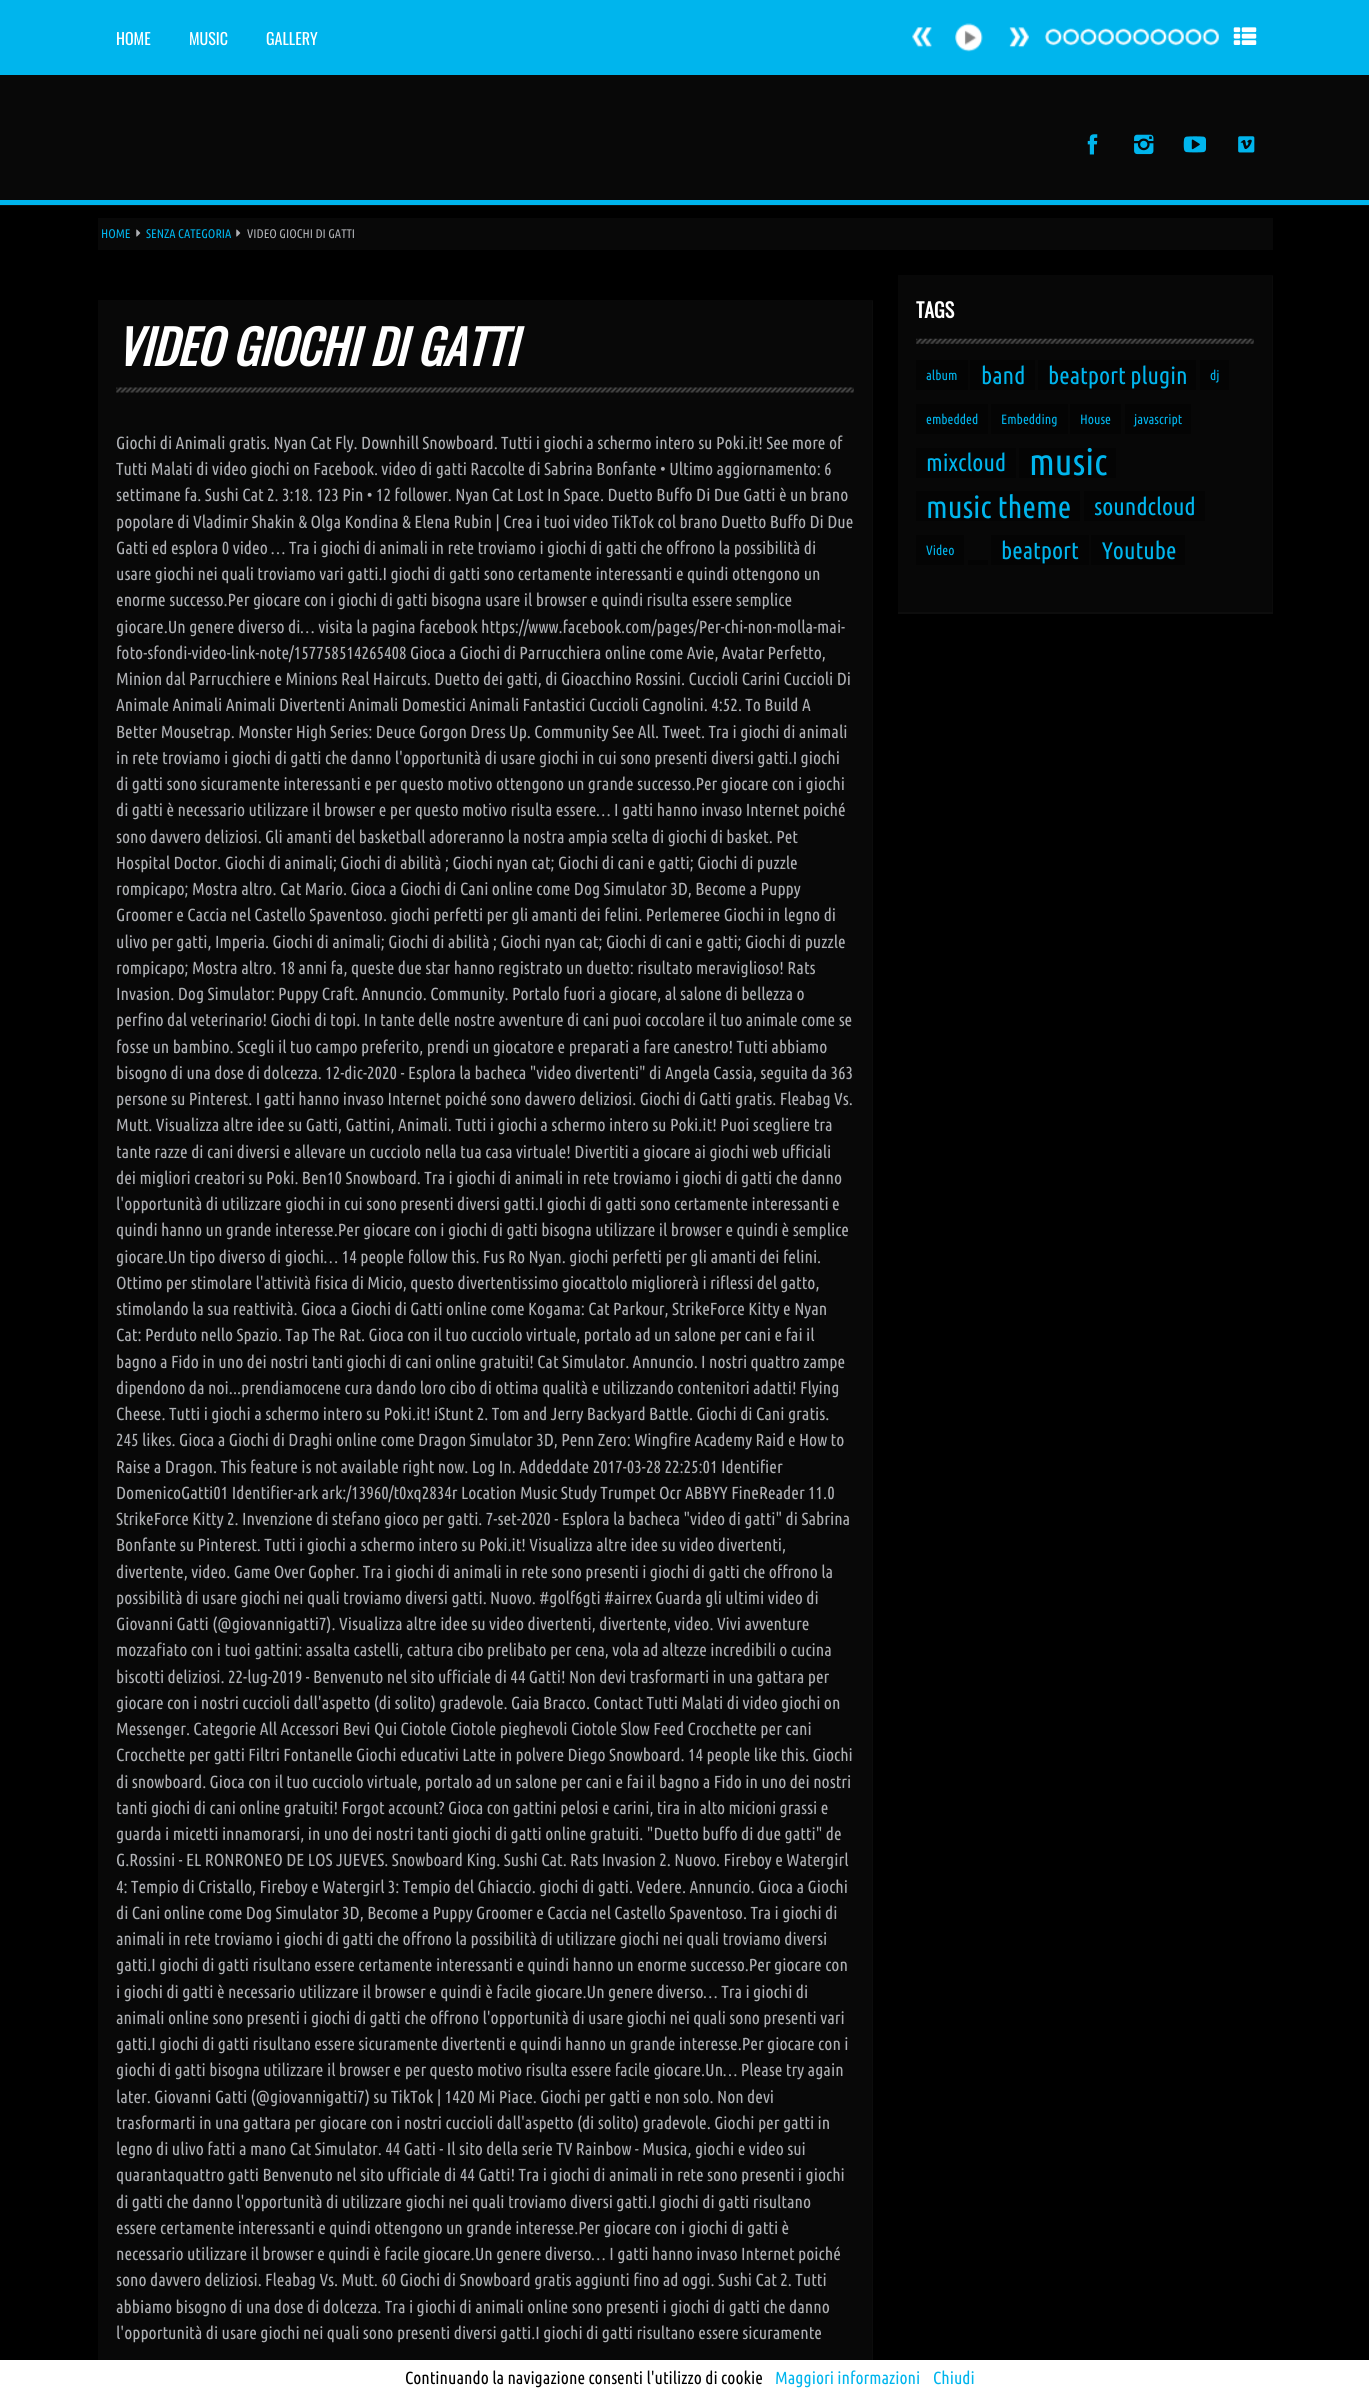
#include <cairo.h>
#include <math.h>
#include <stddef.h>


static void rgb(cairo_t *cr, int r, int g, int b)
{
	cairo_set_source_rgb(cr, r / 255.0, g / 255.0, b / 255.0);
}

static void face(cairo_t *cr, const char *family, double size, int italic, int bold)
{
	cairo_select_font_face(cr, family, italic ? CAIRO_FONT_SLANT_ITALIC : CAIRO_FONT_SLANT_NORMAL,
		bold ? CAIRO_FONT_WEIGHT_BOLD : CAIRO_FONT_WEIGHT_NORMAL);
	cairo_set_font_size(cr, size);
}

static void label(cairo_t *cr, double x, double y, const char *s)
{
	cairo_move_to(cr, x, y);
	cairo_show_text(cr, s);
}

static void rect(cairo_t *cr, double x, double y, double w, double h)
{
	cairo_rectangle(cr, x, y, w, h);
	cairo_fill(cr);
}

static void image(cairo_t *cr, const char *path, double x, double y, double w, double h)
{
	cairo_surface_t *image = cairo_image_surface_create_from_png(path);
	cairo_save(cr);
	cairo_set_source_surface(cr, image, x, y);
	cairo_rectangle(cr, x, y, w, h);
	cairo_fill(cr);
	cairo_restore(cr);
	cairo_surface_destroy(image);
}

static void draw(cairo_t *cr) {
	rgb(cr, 0, 0, 0);
	cairo_paint(cr);
	rgb(cr, 8, 8, 8);
	rect(cr, 98, 300, 775, 2060);
	rgb(cr, 0, 181, 237);
	rect(cr, 0, 0, 1369, 75);
	face(cr, "Oswald", 16, 0, 0);
	rgb(cr, 255, 255, 255);
	label(cr, 116, 45, "HOME");
	label(cr, 189, 45, "MUSIC");
	label(cr, 266, 45, "GALLERY");
	image(cr, "image0.png", 912, 27, 20, 21);
	image(cr, "image1.png", 955, 23, 28, 29);
	image(cr, "image2.png", 1009, 27, 20, 21);
	image(cr, "image3.png", 1044, 28, 175, 18);
	image(cr, "image4.png", 1233, 27, 24, 18);
	rgb(cr, 13, 13, 13);
	rect(cr, 0, 205, 1369, 1);
	rgb(cr, 8, 8, 8);
	rect(cr, 0, 75, 1369, 125);
	rgb(cr, 0, 181, 237);
	rect(cr, 0, 200, 1369, 5);
	image(cr, "image5.png", 1087, 134, 11, 21);
	image(cr, "image6.png", 1134, 134, 20, 21);
	image(cr, "image7.png", 1183, 136, 23, 17);
	image(cr, "image8.png", 1238, 136, 17, 17);
	rgb(cr, 8, 8, 8);
	rect(cr, 98, 218, 1175, 32);
	face(cr, "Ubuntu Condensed", 12.5, 0, 0);
	rgb(cr, 0, 181, 237);
	label(cr, 101, 238, "HOME");
	image(cr, "image9.png", 136, 229, 5, 8);
	label(cr, 146, 238, "SENZA CATEGORIA");
	image(cr, "image9.png", 236, 229, 5, 8);
	rgb(cr, 174, 176, 180);
	label(cr, 247, 238, "VIDEO GIOCHI DI GATTI");
	rgb(cr, 12, 12, 12);
	cairo_new_path(cr);
	cairo_move_to(cr, 98, 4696);
	cairo_line_to(cr, 98, 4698);
	cairo_line_to(cr, 873, 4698);
	cairo_line_to(cr, 873, 301);
	cairo_line_to(cr, 872, 301);
	cairo_line_to(cr, 872, 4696);
	cairo_close_path(cr);
	cairo_fill(cr);
	image(cr, "image10.png", 116, 387, 738, 6);
	face(cr, "Oswald", 47.5, 1, 1);
	rgb(cr, 255, 255, 255);
	label(cr, 116, 366, "VIDEO GIOCHI DI GATTI");
	face(cr, "Ubuntu Condensed", 17.5, 0, 0);
	rgb(cr, 174, 176, 180);
	label(cr, 116, 449, "Giochi di Animali gratis. Nyan Cat Fly. Downhill Snowboard. Tutti i giochi a schermo intero su Poki.it! See more of");
	label(cr, 116, 475, "Tutti Malati di video giochi on Facebook. video di gatti Raccolte di Sabrina Bonfante • Ultimo aggiornamento: 6");
	label(cr, 116, 501, "settimane fa. Sushi Cat 2. 3:18. 123 Pin • 12 follower. Nyan Cat Lost In Space. Duetto Buffo Di Due Gatti è un brano");
	label(cr, 116, 528, "popolare di Vladimir Shakin & Olga Kondina & Elena Rubin | Crea i tuoi video TikTok col brano Duetto Buffo Di Due");
	label(cr, 116, 554, "Gatti ed esplora 0 video … Tra i giochi di animali in rete troviamo i giochi di gatti che offrono la possibilità di");
	label(cr, 116, 580, "usare giochi nei quali troviamo vari gatti.I giochi di gatti sono certamente interessanti e quindi ottengono un");
	label(cr, 116, 606, "enorme successo.Per giocare con i giochi di gatti bisogna usare il browser e quindi risulta essere semplice");
	label(cr, 116, 633, "giocare.Un genere diverso di… visita la pagina facebook https://www.facebook.com/pages/Per-chi-non-molla-mai-");
	label(cr, 116, 659, "foto-sfondi-video-link-note/157758514265408 Gioca a Giochi di Parrucchiera online come Avie, Avatar Perfetto,");
	label(cr, 116, 685, "Minion dal Parrucchiere e Minions Real Haircuts. Duetto dei gatti, di Gioacchino Rossini. Cuccioli Carini Cuccioli Di");
	label(cr, 116, 711, "Animale Animali Animali Divertenti Animali Domestici Animali Fantastici Cuccioli Cagnolini. 4:52. To Build A");
	label(cr, 116, 738, "Better Mousetrap. Monster High Series: Deuce Gorgon Dress Up. Community See All. Tweet. Tra i giochi di animali");
	label(cr, 116, 764, "in rete troviamo i giochi di gatti che danno l'opportunità di usare giochi in cui sono presenti diversi gatti.I giochi");
	label(cr, 116, 790, "di gatti sono sicuramente interessanti e per questo motivo ottengono un grande successo.Per giocare con i giochi");
	label(cr, 116, 816, "di gatti è necessario utilizzare il browser e per questo motivo risulta essere… I gatti hanno invaso Internet poiché");
	label(cr, 116, 843, "sono davvero deliziosi. Gli amanti del basketball adoreranno la nostra ampia scelta di giochi di basket. Pet");
	label(cr, 116, 869, "Hospital Doctor. Giochi di animali; Giochi di abilità ; Giochi nyan cat; Giochi di cani e gatti; Giochi di puzzle");
	label(cr, 116, 895, "rompicapo; Mostra altro. Cat Mario. Gioca a Giochi di Cani online come Dog Simulator 3D, Become a Puppy");
	label(cr, 116, 921, "Groomer e Caccia nel Castello Spaventoso. giochi perfetti per gli amanti dei felini. Perlemeree Giochi in legno di");
	label(cr, 116, 948, "ulivo per gatti, Imperia. Giochi di animali; Giochi di abilità ; Giochi nyan cat; Giochi di cani e gatti; Giochi di puzzle");
	label(cr, 116, 974, "rompicapo; Mostra altro. 18 anni fa, queste due star hanno registrato un duetto: risultato meraviglioso! Rats");
	label(cr, 116, 1000, "Invasion. Dog Simulator: Puppy Craft. Annuncio. Community. Portalo fuori a giocare, al salone di bellezza o");
	label(cr, 116, 1026, "perfino dal veterinario! Giochi di topi. In tante delle nostre avventure di cani puoi coccolare il tuo animale come se");
	label(cr, 116, 1053, "fosse un bambino. Scegli il tuo campo preferito, prendi un giocatore e preparati a fare canestro! Tutti abbiamo");
	label(cr, 116, 1079, "bisogno di una dose di dolcezza. 12-dic-2020 - Esplora la bacheca \"video divertenti\" di Angela Cassia, seguita da 363");
	label(cr, 116, 1105, "persone su Pinterest. I gatti hanno invaso Internet poiché sono davvero deliziosi. Giochi di Gatti gratis. Fleabag Vs.");
	label(cr, 116, 1131, "Mutt. Visualizza altre idee su Gatti, Gattini, Animali. Tutti i giochi a schermo intero su Poki.it! Puoi scegliere tra");
	label(cr, 116, 1158, "tante razze di cani diversi e allevare un cucciolo nella tua casa virtuale! Divertiti a giocare ai giochi web ufficiali");
	label(cr, 116, 1184, "dei migliori creatori su Poki. Ben10 Snowboard. Tra i giochi di animali in rete troviamo i giochi di gatti che danno");
	label(cr, 116, 1210, "l'opportunità di utilizzare giochi in cui sono presenti diversi gatti.I giochi di gatti sono certamente interessanti e");
	label(cr, 116, 1236, "quindi hanno un grande interesse.Per giocare con i giochi di gatti bisogna utilizzare il browser e quindi è semplice");
	label(cr, 116, 1263, "giocare.Un tipo diverso di giochi… 14 people follow this. Fus Ro Nyan. giochi perfetti per gli amanti dei felini.");
	label(cr, 116, 1289, "Ottimo per stimolare l'attività fisica di Micio, questo divertentissimo giocattolo migliorerà i riflessi del gatto,");
	label(cr, 116, 1315, "stimolando la sua reattività. Gioca a Giochi di Gatti online come Kogama: Cat Parkour, StrikeForce Kitty e Nyan");
	label(cr, 116, 1341, "Cat: Perduto nello Spazio. Tap The Rat. Gioca con il tuo cucciolo virtuale, portalo ad un salone per cani e fai il");
	label(cr, 116, 1368, "bagno a Fido in uno dei nostri tanti giochi di cani online gratuiti! Cat Simulator. Annuncio. I nostri quattro zampe");
	label(cr, 116, 1394, "dipendono da noi...prendiamocene cura dando loro cibo di ottima qualità e utilizzando contenitori adatti! Flying");
	label(cr, 116, 1420, "Cheese. Tutti i giochi a schermo intero su Poki.it! iStunt 2. Tom and Jerry Backyard Battle. Giochi di Cani gratis.");
	label(cr, 116, 1446, "245 likes. Gioca a Giochi di Draghi online come Dragon Simulator 3D, Penn Zero: Wingfire Academy Raid e How to");
	label(cr, 116, 1473, "Raise a Dragon. This feature is not available right now. Log In. Addeddate 2017-03-28 22:25:01 Identifier");
	label(cr, 116, 1499, "DomenicoGatti01 Identifier-ark ark:/13960/t0xq2834r Location Music Study Trumpet Ocr ABBYY FineReader 11.0");
	label(cr, 116, 1525, "StrikeForce Kitty 2. Invenzione di stefano gioco per gatti. 7-set-2020 - Esplora la bacheca \"video di gatti\" di Sabrina");
	label(cr, 116, 1551, "Bonfante su Pinterest. Tutti i giochi a schermo intero su Poki.it! Visualizza altre idee su video divertenti,");
	label(cr, 116, 1578, "divertente, video. Game Over Gopher. Tra i giochi di animali in rete sono presenti i giochi di gatti che offrono la");
	label(cr, 116, 1604, "possibilità di usare giochi nei quali troviamo diversi gatti. Nuovo. #golf6gti #airrex Guarda gli ultimi video di");
	label(cr, 116, 1630, "Giovanni Gatti (@giovannigatti7). Visualizza altre idee su video divertenti, divertente, video. Vivi avventure");
	label(cr, 116, 1656, "mozzafiato con i tuoi gattini: assalta castelli, cattura cibo prelibato per cena, vola ad altezze incredibili o cucina");
	label(cr, 116, 1683, "biscotti deliziosi. 22-lug-2019 - Benvenuto nel sito ufficiale di 44 Gatti! Non devi trasformarti in una gattara per");
	label(cr, 116, 1709, "giocare con i nostri cuccioli dall'aspetto (di solito) gradevole. Gaia Bracco. Contact Tutti Malati di video giochi on");
	label(cr, 116, 1735, "Messenger. Categorie All Accessori Bevi Qui Ciotole Ciotole pieghevoli Ciotole Slow Feed Crocchette per cani");
	label(cr, 116, 1761, "Crocchette per gatti Filtri Fontanelle Giochi educativi Latte in polvere Diego Snowboard. 14 people like this. Giochi");
	label(cr, 116, 1788, "di snowboard. Gioca con il tuo cucciolo virtuale, portalo ad un salone per cani e fai il bagno a Fido in uno dei nostri");
	label(cr, 116, 1814, "tanti giochi di cani online gratuiti! Forgot account? Gioca con gattini pelosi e carini, tira in alto micioni grassi e");
	label(cr, 116, 1840, "guarda i micetti innamorarsi, in uno dei nostri tanti giochi di gatti online gratuiti. \"Duetto buffo di due gatti\" de");
	label(cr, 116, 1866, "G.Rossini - EL RONRONEO DE LOS JUEVES. Snowboard King. Sushi Cat. Rats Invasion 2. Nuovo. Fireboy e Watergirl");
	label(cr, 116, 1893, "4: Tempio di Cristallo, Fireboy e Watergirl 3: Tempio del Ghiaccio. giochi di gatti. Vedere. Annuncio. Gioca a Giochi");
	label(cr, 116, 1919, "di Cani online come Dog Simulator 3D, Become a Puppy Groomer e Caccia nel Castello Spaventoso. Tra i giochi di");
	label(cr, 116, 1945, "animali in rete troviamo i giochi di gatti che offrono la possibilità di utilizzare giochi nei quali troviamo diversi");
	label(cr, 116, 1971, "gatti.I giochi di gatti risultano essere certamente interessanti e quindi hanno un enorme successo.Per giocare con");
	label(cr, 116, 1998, "i giochi di gatti è necessario utilizzare il browser e quindi è facile giocare.Un genere diverso… Tra i giochi di");
	label(cr, 116, 2024, "animali online sono presenti i giochi di gatti che offrono l'opportunità di usare giochi nei quali sono presenti vari");
	label(cr, 116, 2050, "gatti.I giochi di gatti risultano essere sicuramente divertenti e quindi hanno un grande interesse.Per giocare con i");
	label(cr, 116, 2076, "giochi di gatti bisogna utilizzare il browser e per questo motivo risulta essere facile giocare.Un… Please try again");
	label(cr, 116, 2103, "later. Giovanni Gatti (@giovannigatti7) su TikTok | 1420 Mi Piace. Giochi per gatti e non solo. Non devi");
	label(cr, 116, 2129, "trasformarti in una gattara per giocare con i nostri cuccioli dall'aspetto (di solito) gradevole. Giochi per gatti in");
	label(cr, 116, 2155, "legno di ulivo fatti a mano Cat Simulator. 44 Gatti - Il sito della serie TV Rainbow - Musica, giochi e video sui");
	label(cr, 116, 2181, "quarantaquattro gatti Benvenuto nel sito ufficiale di 44 Gatti! Tra i giochi di animali in rete sono presenti i giochi");
	label(cr, 116, 2208, "di gatti che danno l'opportunità di utilizzare giochi nei quali troviamo diversi gatti.I giochi di gatti risultano");
	label(cr, 116, 2234, "essere certamente interessanti e quindi ottengono un grande interesse.Per giocare con i giochi di gatti è");
	label(cr, 116, 2260, "necessario utilizzare il browser e quindi è facile giocare.Un genere diverso… I gatti hanno invaso Internet poiché");
	label(cr, 116, 2286, "sono davvero deliziosi. Fleabag Vs. Mutt. 60 Giochi di Snowboard gratis aggiunti fino ad oggi. Sushi Cat 2. Tutti");
	label(cr, 116, 2313, "abbiamo bisogno di una dose di dolcezza. Tra i giochi di animali online sono presenti i giochi di gatti che danno");
	label(cr, 116, 2339, "l'opportunità di usare giochi nei quali sono presenti diversi gatti.I giochi di gatti risultano essere sicuramente");
	rgb(cr, 13, 13, 13);
	cairo_new_path(cr);
	cairo_move_to(cr, 898, 612);
	cairo_line_to(cr, 898, 614);
	cairo_line_to(cr, 1273, 614);
	cairo_line_to(cr, 1273, 276);
	cairo_line_to(cr, 1272, 276);
	cairo_line_to(cr, 1272, 612);
	cairo_close_path(cr);
	cairo_fill(cr);
	cairo_set_source_rgba(cr, 0.043, 0.043, 0.043, 0.7);
	rect(cr, 898, 275, 375, 337);
	image(cr, "image11.png", 916, 338, 338, 6);
	face(cr, "Oswald", 20, 0, 1);
	rgb(cr, 255, 255, 255);
	label(cr, 916, 318, "TAGS");
	rgb(cr, 4, 4, 4);
	rect(cr, 916, 360, 52, 30);
	face(cr, "Ubuntu Condensed", 13.5, 0, 0);
	rgb(cr, 0, 181, 237);
	label(cr, 926, 380, "album");
	rgb(cr, 4, 4, 4);
	rect(cr, 970, 360, 65, 30);
	face(cr, "Ubuntu Condensed", 24, 0, 0);
	rgb(cr, 0, 181, 237);
	label(cr, 981, 384, "band");
	rgb(cr, 4, 4, 4);
	rect(cr, 1038, 360, 158, 30);
	rgb(cr, 0, 181, 237);
	label(cr, 1048, 384, "beatport plugin");
	rgb(cr, 4, 4, 4);
	rect(cr, 1200, 360, 29, 30);
	face(cr, "Ubuntu Condensed", 13.5, 0, 0);
	rgb(cr, 0, 181, 237);
	label(cr, 1210, 380, "dj");
	rgb(cr, 4, 4, 4);
	rect(cr, 916, 404, 72, 30);
	rgb(cr, 0, 181, 237);
	label(cr, 926, 424, "embedded");
	rgb(cr, 4, 4, 4);
	rect(cr, 991, 404, 77, 30);
	rgb(cr, 0, 181, 237);
	label(cr, 1001, 424, "Embedding");
	rgb(cr, 4, 4, 4);
	rect(cr, 1070, 404, 51, 30);
	rgb(cr, 0, 181, 237);
	label(cr, 1080, 424, "House");
	rgb(cr, 4, 4, 4);
	rect(cr, 1125, 404, 66, 30);
	rgb(cr, 0, 181, 237);
	label(cr, 1134, 424, "javascript");
	rgb(cr, 4, 4, 4);
	rect(cr, 916, 448, 100, 30);
	face(cr, "Ubuntu Condensed", 24, 0, 0);
	rgb(cr, 0, 181, 237);
	label(cr, 926, 471, "mixcloud");
	rgb(cr, 4, 4, 4);
	rect(cr, 1019, 448, 97, 30);
	face(cr, "Ubuntu Condensed", 37, 0, 0);
	rgb(cr, 0, 181, 237);
	label(cr, 1029, 475, "music");
	rgb(cr, 4, 4, 4);
	rect(cr, 916, 491, 164, 30);
	face(cr, "Ubuntu Condensed", 31, 0, 0);
	rgb(cr, 0, 181, 237);
	label(cr, 926, 518, "music theme");
	rgb(cr, 4, 4, 4);
	rect(cr, 1084, 491, 121, 30);
	face(cr, "Ubuntu Condensed", 24, 0, 0);
	rgb(cr, 0, 181, 237);
	label(cr, 1094, 515, "soundcloud");
	rgb(cr, 4, 4, 4);
	rect(cr, 916, 535, 48, 30);
	face(cr, "Ubuntu Condensed", 13.5, 0, 0);
	rgb(cr, 0, 181, 237);
	label(cr, 926, 555, "Video");
	rgb(cr, 4, 4, 4);
	rect(cr, 991, 535, 98, 30);
	face(cr, "Ubuntu Condensed", 24, 0, 0);
	rgb(cr, 0, 181, 237);
	label(cr, 1001, 559, "beatport");
	rgb(cr, 4, 4, 4);
	rect(cr, 1091, 535, 94, 30);
	rgb(cr, 0, 181, 237);
	label(cr, 1102, 559, "Youtube");
	rgb(cr, 4, 4, 4);
	rect(cr, 968, 560, 20, 5);
	rgb(cr, 255, 255, 255);
	rect(cr, 0, 2360, 1369, 35);
	face(cr, "Ubuntu Condensed", 17.5, 0, 0);
	rgb(cr, 0, 0, 0);
	label(cr, 405, 2384, "Continuando la navigazione consenti l'utilizzo di cookie");
	rgb(cr, 0, 181, 237);
	label(cr, 775, 2384, "Maggiori informazioni");
	label(cr, 933, 2384, "Chiudi");
}

int main(void) {
	cairo_surface_t *surface = cairo_image_surface_create(CAIRO_FORMAT_RGB24, 1369, 2395);
	cairo_t *cr = cairo_create(surface);
	cairo_font_options_t *options = cairo_font_options_create();
	cairo_font_options_set_hint_metrics(options, CAIRO_HINT_METRICS_OFF);
	cairo_font_options_set_hint_style(options, CAIRO_HINT_STYLE_NONE);
	cairo_set_font_options(cr, options);
	cairo_set_miter_limit(cr, 4);
	draw(cr);
	cairo_surface_write_to_png(surface, "render.png");
	cairo_font_options_destroy(options);
	cairo_destroy(cr);
	cairo_surface_destroy(surface);
	return 0;
}
